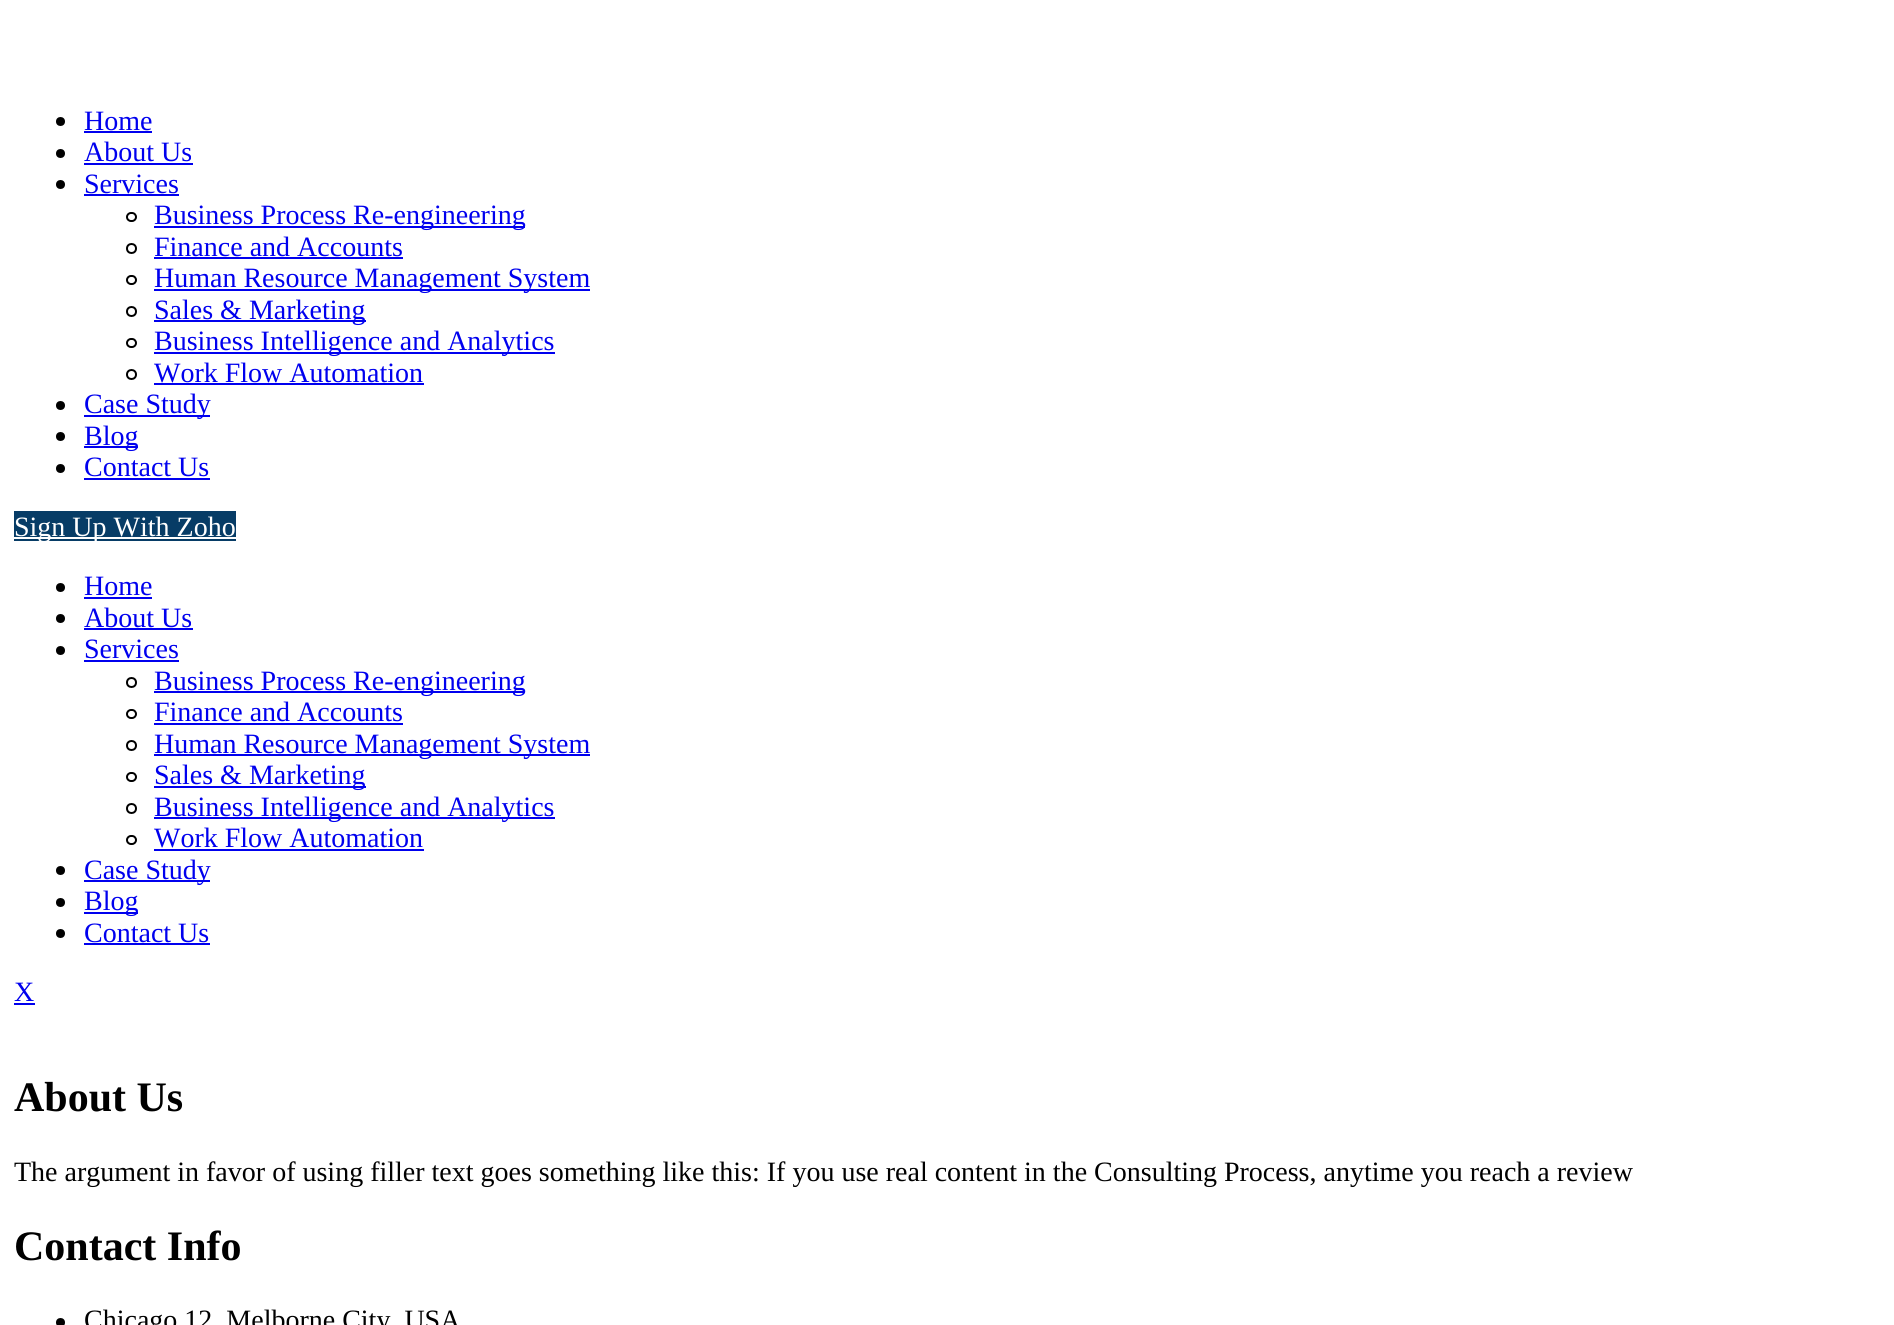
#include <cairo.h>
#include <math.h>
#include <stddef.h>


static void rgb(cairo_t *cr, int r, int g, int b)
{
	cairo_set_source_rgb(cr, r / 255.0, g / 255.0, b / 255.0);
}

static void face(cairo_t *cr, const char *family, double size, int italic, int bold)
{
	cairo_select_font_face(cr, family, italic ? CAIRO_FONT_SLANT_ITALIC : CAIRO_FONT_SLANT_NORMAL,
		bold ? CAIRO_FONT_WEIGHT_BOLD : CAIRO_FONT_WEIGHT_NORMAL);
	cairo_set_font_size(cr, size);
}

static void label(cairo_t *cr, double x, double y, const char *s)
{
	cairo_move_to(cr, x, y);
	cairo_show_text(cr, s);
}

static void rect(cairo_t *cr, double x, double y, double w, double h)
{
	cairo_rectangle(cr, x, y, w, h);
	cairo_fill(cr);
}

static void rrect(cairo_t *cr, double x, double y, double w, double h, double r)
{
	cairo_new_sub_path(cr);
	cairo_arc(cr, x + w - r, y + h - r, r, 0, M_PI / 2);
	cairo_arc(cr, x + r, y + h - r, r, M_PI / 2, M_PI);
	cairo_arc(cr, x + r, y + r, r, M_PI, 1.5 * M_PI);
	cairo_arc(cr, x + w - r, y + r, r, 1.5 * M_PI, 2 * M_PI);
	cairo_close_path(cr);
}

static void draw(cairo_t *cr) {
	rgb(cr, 255, 255, 255);
	cairo_paint(cr);
	rgb(cr, 0, 0, 0);
	cairo_arc(cr, 60.5, 121.5, 4.5, 0, 2 * M_PI);
	cairo_fill(cr);
	face(cr, "Liberation Serif", 28, 0, 0);
	rgb(cr, 0, 0, 238);
	label(cr, 84, 130, "Home");
	rect(cr, 84, 131, 68, 2);
	rgb(cr, 0, 0, 0);
	cairo_new_path(cr);
	cairo_arc(cr, 60.5, 153.5, 4.5, 0, 2 * M_PI);
	cairo_fill(cr);
	rgb(cr, 0, 0, 238);
	label(cr, 84, 161, "About Us");
	rect(cr, 84, 163, 109, 2);
	rgb(cr, 0, 0, 0);
	cairo_new_path(cr);
	cairo_arc(cr, 60.5, 184.5, 4.5, 0, 2 * M_PI);
	cairo_fill(cr);
	rgb(cr, 0, 0, 238);
	label(cr, 84, 193, "Services");
	rect(cr, 84, 194, 95, 2);
	rrect(cr, 127, 213, 9, 8, 4);
	rgb(cr, 0, 0, 0);
	cairo_stroke(cr);
	rgb(cr, 0, 0, 238);
	rect(cr, 154, 226, 371, 2);
	label(cr, 154, 224, "Business Process Re-engineering");
	cairo_new_path(cr);
	cairo_arc(cr, 131.5, 248.5, 4.5, 0, 2 * M_PI);
	rgb(cr, 0, 0, 0);
	cairo_stroke(cr);
	rgb(cr, 0, 0, 238);
	label(cr, 154, 256, "Finance and Accounts");
	rect(cr, 154, 257, 249, 2);
	rrect(cr, 127, 276, 9, 8, 4);
	rgb(cr, 0, 0, 0);
	cairo_stroke(cr);
	rgb(cr, 0, 0, 238);
	rect(cr, 154, 289, 436, 2);
	label(cr, 154, 287, "Human Resource Management System");
	cairo_new_path(cr);
	cairo_arc(cr, 131.5, 311.5, 4.5, 0, 2 * M_PI);
	rgb(cr, 0, 0, 0);
	cairo_stroke(cr);
	rgb(cr, 0, 0, 238);
	rect(cr, 154, 320, 212, 2);
	label(cr, 154, 319, "Sales & Marketing");
	rrect(cr, 127, 339, 9, 8, 4);
	rgb(cr, 0, 0, 0);
	cairo_stroke(cr);
	rgb(cr, 0, 0, 238);
	rect(cr, 154, 352, 401, 2);
	label(cr, 154, 350, "Business Intelligence and Analytics");
	cairo_new_path(cr);
	cairo_arc(cr, 131.5, 374.5, 4.5, 0, 2 * M_PI);
	rgb(cr, 0, 0, 0);
	cairo_stroke(cr);
	rgb(cr, 0, 0, 238);
	label(cr, 154, 382, "Work Flow Automation");
	rect(cr, 154, 383, 270, 2);
	rgb(cr, 0, 0, 0);
	cairo_new_path(cr);
	cairo_arc(cr, 60.5, 405.5, 4.5, 0, 2 * M_PI);
	cairo_fill(cr);
	rgb(cr, 0, 0, 238);
	rect(cr, 84, 415, 126, 2);
	label(cr, 84, 413, "Case Study");
	rgb(cr, 0, 0, 0);
	cairo_new_path(cr);
	cairo_arc(cr, 60.5, 436.5, 4.5, 0, 2 * M_PI);
	cairo_fill(cr);
	rgb(cr, 0, 0, 238);
	rect(cr, 84, 446, 54, 2);
	label(cr, 84, 445, "Blog");
	rgb(cr, 0, 0, 0);
	cairo_new_path(cr);
	cairo_arc(cr, 60.5, 468.5, 4.5, 0, 2 * M_PI);
	cairo_fill(cr);
	rgb(cr, 0, 0, 238);
	label(cr, 84, 476, "Contact Us");
	rect(cr, 84, 478, 126, 2);
	rgb(cr, 7, 60, 102);
	rect(cr, 14, 511, 222, 30);
	rgb(cr, 255, 255, 255);
	rect(cr, 14, 537, 222, 2);
	label(cr, 14, 536, "Sign Up With Zoho");
	rgb(cr, 0, 0, 0);
	cairo_new_path(cr);
	cairo_arc(cr, 60.5, 587.5, 4.5, 0, 2 * M_PI);
	cairo_fill(cr);
	rgb(cr, 0, 0, 238);
	label(cr, 84, 595, "Home");
	rect(cr, 84, 597, 68, 2);
	rgb(cr, 0, 0, 0);
	cairo_new_path(cr);
	cairo_arc(cr, 60.5, 618.5, 4.5, 0, 2 * M_PI);
	cairo_fill(cr);
	rgb(cr, 0, 0, 238);
	label(cr, 84, 627, "About Us");
	rect(cr, 84, 628, 109, 2);
	rgb(cr, 0, 0, 0);
	cairo_new_path(cr);
	cairo_arc(cr, 60.5, 650.5, 4.5, 0, 2 * M_PI);
	cairo_fill(cr);
	rgb(cr, 0, 0, 238);
	label(cr, 84, 658, "Services");
	rect(cr, 84, 660, 95, 2);
	cairo_new_path(cr);
	cairo_arc(cr, 131.5, 682.5, 4.5, 0, 2 * M_PI);
	rgb(cr, 0, 0, 0);
	cairo_stroke(cr);
	rgb(cr, 0, 0, 238);
	rect(cr, 154, 691, 371, 2);
	label(cr, 154, 690, "Business Process Re-engineering");
	rrect(cr, 127, 710, 9, 8, 4);
	rgb(cr, 0, 0, 0);
	cairo_stroke(cr);
	rgb(cr, 0, 0, 238);
	label(cr, 154, 721, "Finance and Accounts");
	rect(cr, 154, 723, 249, 2);
	cairo_new_path(cr);
	cairo_arc(cr, 131.5, 745.5, 4.5, 0, 2 * M_PI);
	rgb(cr, 0, 0, 0);
	cairo_stroke(cr);
	rgb(cr, 0, 0, 238);
	rect(cr, 154, 754, 436, 2);
	label(cr, 154, 753, "Human Resource Management System");
	rrect(cr, 127, 773, 9, 8, 4);
	rgb(cr, 0, 0, 0);
	cairo_stroke(cr);
	rgb(cr, 0, 0, 238);
	rect(cr, 154, 786, 212, 2);
	label(cr, 154, 784, "Sales & Marketing");
	cairo_new_path(cr);
	cairo_arc(cr, 131.5, 808.5, 4.5, 0, 2 * M_PI);
	rgb(cr, 0, 0, 0);
	cairo_stroke(cr);
	rgb(cr, 0, 0, 238);
	rect(cr, 154, 817, 401, 2);
	label(cr, 154, 816, "Business Intelligence and Analytics");
	rrect(cr, 127, 836, 9, 8, 4);
	rgb(cr, 0, 0, 0);
	cairo_stroke(cr);
	rgb(cr, 0, 0, 238);
	label(cr, 154, 847, "Work Flow Automation");
	rect(cr, 154, 849, 270, 2);
	rgb(cr, 0, 0, 0);
	cairo_new_path(cr);
	cairo_arc(cr, 60.5, 870.5, 4.5, 0, 2 * M_PI);
	cairo_fill(cr);
	rgb(cr, 0, 0, 238);
	rect(cr, 84, 880, 126, 2);
	label(cr, 84, 879, "Case Study");
	rgb(cr, 0, 0, 0);
	cairo_new_path(cr);
	cairo_arc(cr, 60.5, 902.5, 4.5, 0, 2 * M_PI);
	cairo_fill(cr);
	rgb(cr, 0, 0, 238);
	rect(cr, 84, 912, 54, 2);
	label(cr, 84, 910, "Blog");
	rgb(cr, 0, 0, 0);
	cairo_new_path(cr);
	cairo_arc(cr, 60.5, 933.5, 4.5, 0, 2 * M_PI);
	cairo_fill(cr);
	rgb(cr, 0, 0, 238);
	label(cr, 84, 942, "Contact Us");
	rect(cr, 84, 943, 126, 2);
	label(cr, 14, 1001, "X");
	rect(cr, 14, 1003, 21, 2);
	face(cr, "Liberation Serif", 42, 0, 1);
	rgb(cr, 0, 0, 0);
	label(cr, 14, 1111, "About Us");
	face(cr, "Liberation Serif", 28, 0, 0);
	label(cr, 14, 1181, "The argument in favor of using filler text goes something like this: If you use real content in the Consulting Process, anytime you reach a review");
	face(cr, "Liberation Serif", 42, 0, 1);
	label(cr, 14, 1260, "Contact Info");
	cairo_new_path(cr);
	cairo_arc(cr, 60.5, 1322.5, 4.5, 0, 2 * M_PI);
	cairo_fill(cr);
	face(cr, "Liberation Serif", 28, 0, 0);
	label(cr, 84, 1329, "Chicago 12, Melborne City, USA");
}

int main(void) {
	cairo_surface_t *surface = cairo_image_surface_create(CAIRO_FORMAT_RGB24, 1894, 1325);
	cairo_t *cr = cairo_create(surface);
	cairo_font_options_t *options = cairo_font_options_create();
	cairo_font_options_set_hint_metrics(options, CAIRO_HINT_METRICS_OFF);
	cairo_font_options_set_hint_style(options, CAIRO_HINT_STYLE_NONE);
	cairo_set_font_options(cr, options);
	cairo_set_miter_limit(cr, 4);
	draw(cr);
	cairo_surface_write_to_png(surface, "render.png");
	cairo_font_options_destroy(options);
	cairo_destroy(cr);
	cairo_surface_destroy(surface);
	return 0;
}
